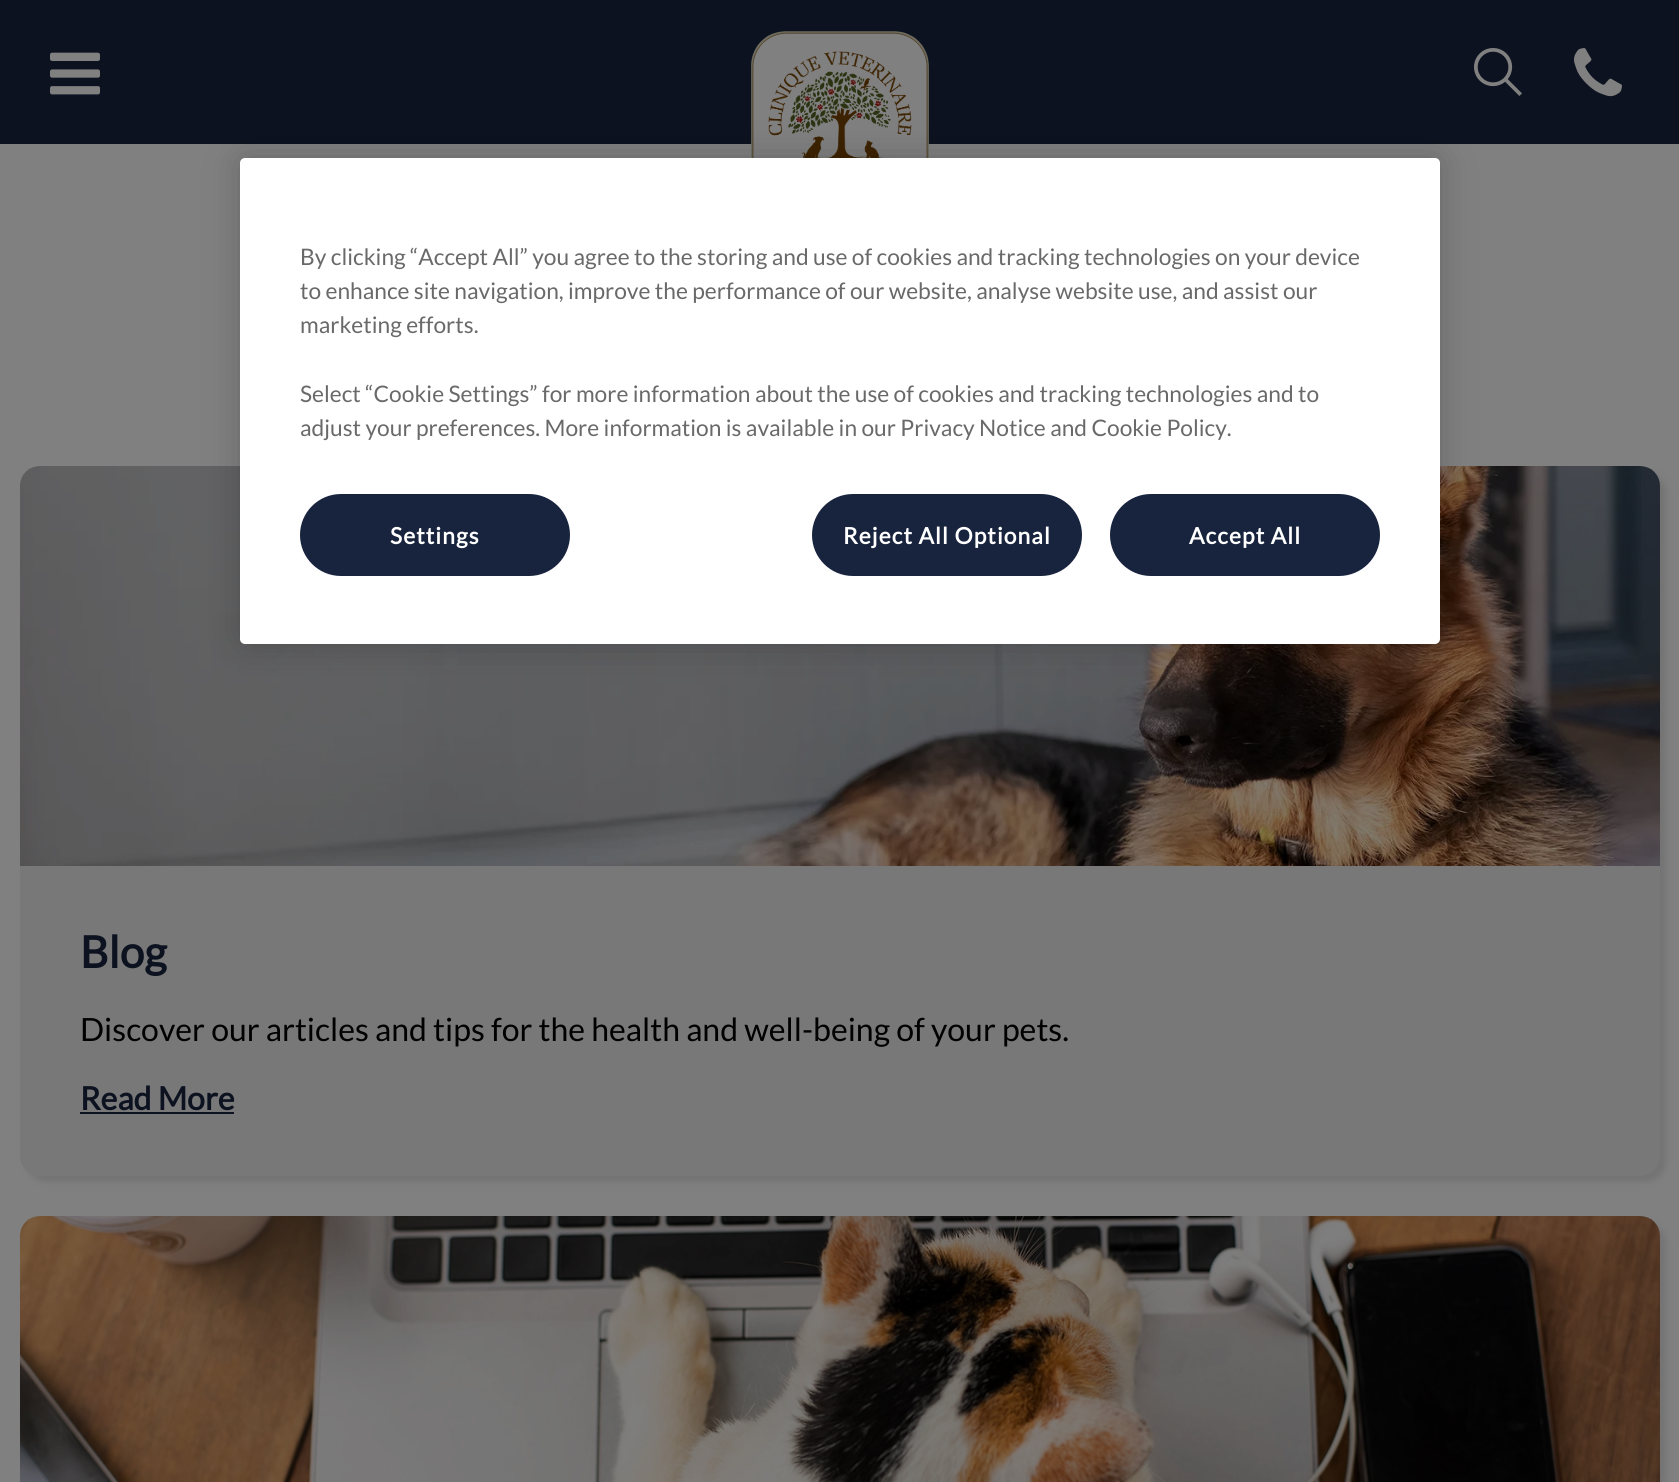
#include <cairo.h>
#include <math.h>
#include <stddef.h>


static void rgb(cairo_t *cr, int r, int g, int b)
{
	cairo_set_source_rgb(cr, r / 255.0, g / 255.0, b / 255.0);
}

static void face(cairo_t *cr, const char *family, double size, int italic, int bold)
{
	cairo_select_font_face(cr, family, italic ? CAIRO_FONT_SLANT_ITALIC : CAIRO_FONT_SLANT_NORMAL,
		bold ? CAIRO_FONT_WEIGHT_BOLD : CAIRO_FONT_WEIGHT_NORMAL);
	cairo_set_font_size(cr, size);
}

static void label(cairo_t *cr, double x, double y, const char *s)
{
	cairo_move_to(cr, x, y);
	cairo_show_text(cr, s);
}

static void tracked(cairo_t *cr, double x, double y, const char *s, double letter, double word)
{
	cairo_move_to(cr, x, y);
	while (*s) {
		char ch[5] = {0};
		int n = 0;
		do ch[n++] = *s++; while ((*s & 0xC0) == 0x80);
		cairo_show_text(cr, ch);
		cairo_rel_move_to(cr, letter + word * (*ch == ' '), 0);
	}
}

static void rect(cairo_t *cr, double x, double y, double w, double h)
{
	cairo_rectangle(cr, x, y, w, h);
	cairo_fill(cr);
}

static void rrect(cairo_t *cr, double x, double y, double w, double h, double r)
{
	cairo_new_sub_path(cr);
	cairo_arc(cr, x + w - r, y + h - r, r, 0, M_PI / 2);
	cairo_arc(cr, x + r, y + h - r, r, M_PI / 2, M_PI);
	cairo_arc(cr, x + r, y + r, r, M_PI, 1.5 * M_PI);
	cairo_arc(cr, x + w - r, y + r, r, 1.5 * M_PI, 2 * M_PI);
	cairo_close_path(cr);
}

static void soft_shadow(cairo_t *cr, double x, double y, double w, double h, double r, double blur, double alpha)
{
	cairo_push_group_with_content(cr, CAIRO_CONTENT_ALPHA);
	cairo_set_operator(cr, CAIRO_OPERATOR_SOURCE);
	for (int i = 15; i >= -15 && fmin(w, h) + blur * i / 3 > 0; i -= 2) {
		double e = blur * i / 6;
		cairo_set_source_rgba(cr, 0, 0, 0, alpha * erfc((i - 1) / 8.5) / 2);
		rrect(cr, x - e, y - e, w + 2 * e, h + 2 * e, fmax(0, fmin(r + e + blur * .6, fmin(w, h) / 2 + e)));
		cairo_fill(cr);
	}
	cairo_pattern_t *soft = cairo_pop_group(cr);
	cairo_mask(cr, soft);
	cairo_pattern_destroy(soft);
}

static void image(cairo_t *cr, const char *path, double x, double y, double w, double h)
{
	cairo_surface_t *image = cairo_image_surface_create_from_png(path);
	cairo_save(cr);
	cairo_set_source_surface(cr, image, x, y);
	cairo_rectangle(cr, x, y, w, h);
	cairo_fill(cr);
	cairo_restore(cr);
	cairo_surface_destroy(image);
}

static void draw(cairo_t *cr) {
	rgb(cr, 128, 128, 128);
	cairo_paint(cr);
	rgb(cr, 12, 18, 31);
	rect(cr, 0, 0, 1679, 144);
	image(cr, "image1.png", 751, 31, 178, 127);
	rgb(cr, 97, 97, 97);
	soft_shadow(cr, 26, 472, 1640, 710, 20, 3, 0.4);
	rgb(cr, 120, 120, 120);
	rrect(cr, 20, 466, 1640, 710, 20);
	cairo_fill(cr);
	image(cr, "image4.png", 20, 466, 1640, 400);
	rgb(cr, 0, 0, 0);
	soft_shadow(cr, 240, 158, 1200, 486, 5, 18, 0.2);
	rgb(cr, 255, 255, 255);
	rrect(cr, 240, 158, 1200, 486, 5);
	cairo_fill(cr);
	face(cr, "Lato", 22.75, 0, 0);
	rgb(cr, 105, 105, 105);
	label(cr, 300, 265, "By clicking “Accept All” you agree to the storing and use of cookies and tracking technologies on your device");
	label(cr, 300, 299, "to enhance site navigation, improve the performance of our website, analyse website use, and assist our");
	label(cr, 300, 333, "marketing efforts.");
	label(cr, 300, 402, "Select “Cookie Settings” for more information about the use of cookies and tracking technologies and to");
	label(cr, 300, 436, "adjust your preferences. More information is available in our Privacy Notice and Cookie Policy.");
	rgb(cr, 24, 36, 61);
	rrect(cr, 301, 495, 268, 80, 40);
	cairo_fill_preserve(cr);
	cairo_stroke(cr);
	face(cr, "Lato", 22.75, 0, 1);
	rgb(cr, 255, 255, 255);
	tracked(cr, 390, 544, "Settings", 1.1, 0);
	rgb(cr, 24, 36, 61);
	rrect(cr, 813, 495, 268, 80, 40);
	cairo_fill_preserve(cr);
	cairo_stroke(cr);
	rgb(cr, 255, 255, 255);
	tracked(cr, 843, 544, "Reject All Optional", 1.1, 0);
	rgb(cr, 24, 36, 61);
	rrect(cr, 1111, 495, 268, 80, 40);
	cairo_fill_preserve(cr);
	cairo_stroke(cr);
	rgb(cr, 255, 255, 255);
	tracked(cr, 1189, 544, "Accept All", 1.1, 0);
	image(cr, "image0.png", 50, 52, 50, 43);
	image(cr, "image2.png", 1474, 48, 48, 48);
	image(cr, "image3.png", 1574, 48, 48, 49);
	face(cr, "Lato", 44, 0, 1);
	rgb(cr, 12, 18, 31);
	label(cr, 80, 968, "Blog");
	face(cr, "Lato", 32, 0, 0);
	rgb(cr, 0, 0, 0);
	label(cr, 80, 1041, "Discover our articles and tips for the health and well-being of your pets.");
	face(cr, "Lato", 32, 0, 1);
	rgb(cr, 12, 18, 31);
	label(cr, 80, 1110, "Read More");
	rect(cr, 80, 1112, 154, 2);
	rgb(cr, 97, 97, 97);
	soft_shadow(cr, 26, 1222, 1640, 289, 20, 3, 0.4);
	rgb(cr, 120, 120, 120);
	rrect(cr, 20, 1216, 1640, 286, 20);
	cairo_fill(cr);
	image(cr, "image5.png", 20, 1216, 1640, 266);
}

int main(void) {
	cairo_surface_t *surface = cairo_image_surface_create(CAIRO_FORMAT_RGB24, 1679, 1482);
	cairo_t *cr = cairo_create(surface);
	cairo_font_options_t *options = cairo_font_options_create();
	cairo_font_options_set_hint_metrics(options, CAIRO_HINT_METRICS_OFF);
	cairo_font_options_set_hint_style(options, CAIRO_HINT_STYLE_NONE);
	cairo_set_font_options(cr, options);
	cairo_set_miter_limit(cr, 4);
	draw(cr);
	cairo_surface_write_to_png(surface, "render.png");
	cairo_font_options_destroy(options);
	cairo_destroy(cr);
	cairo_surface_destroy(surface);
	return 0;
}
